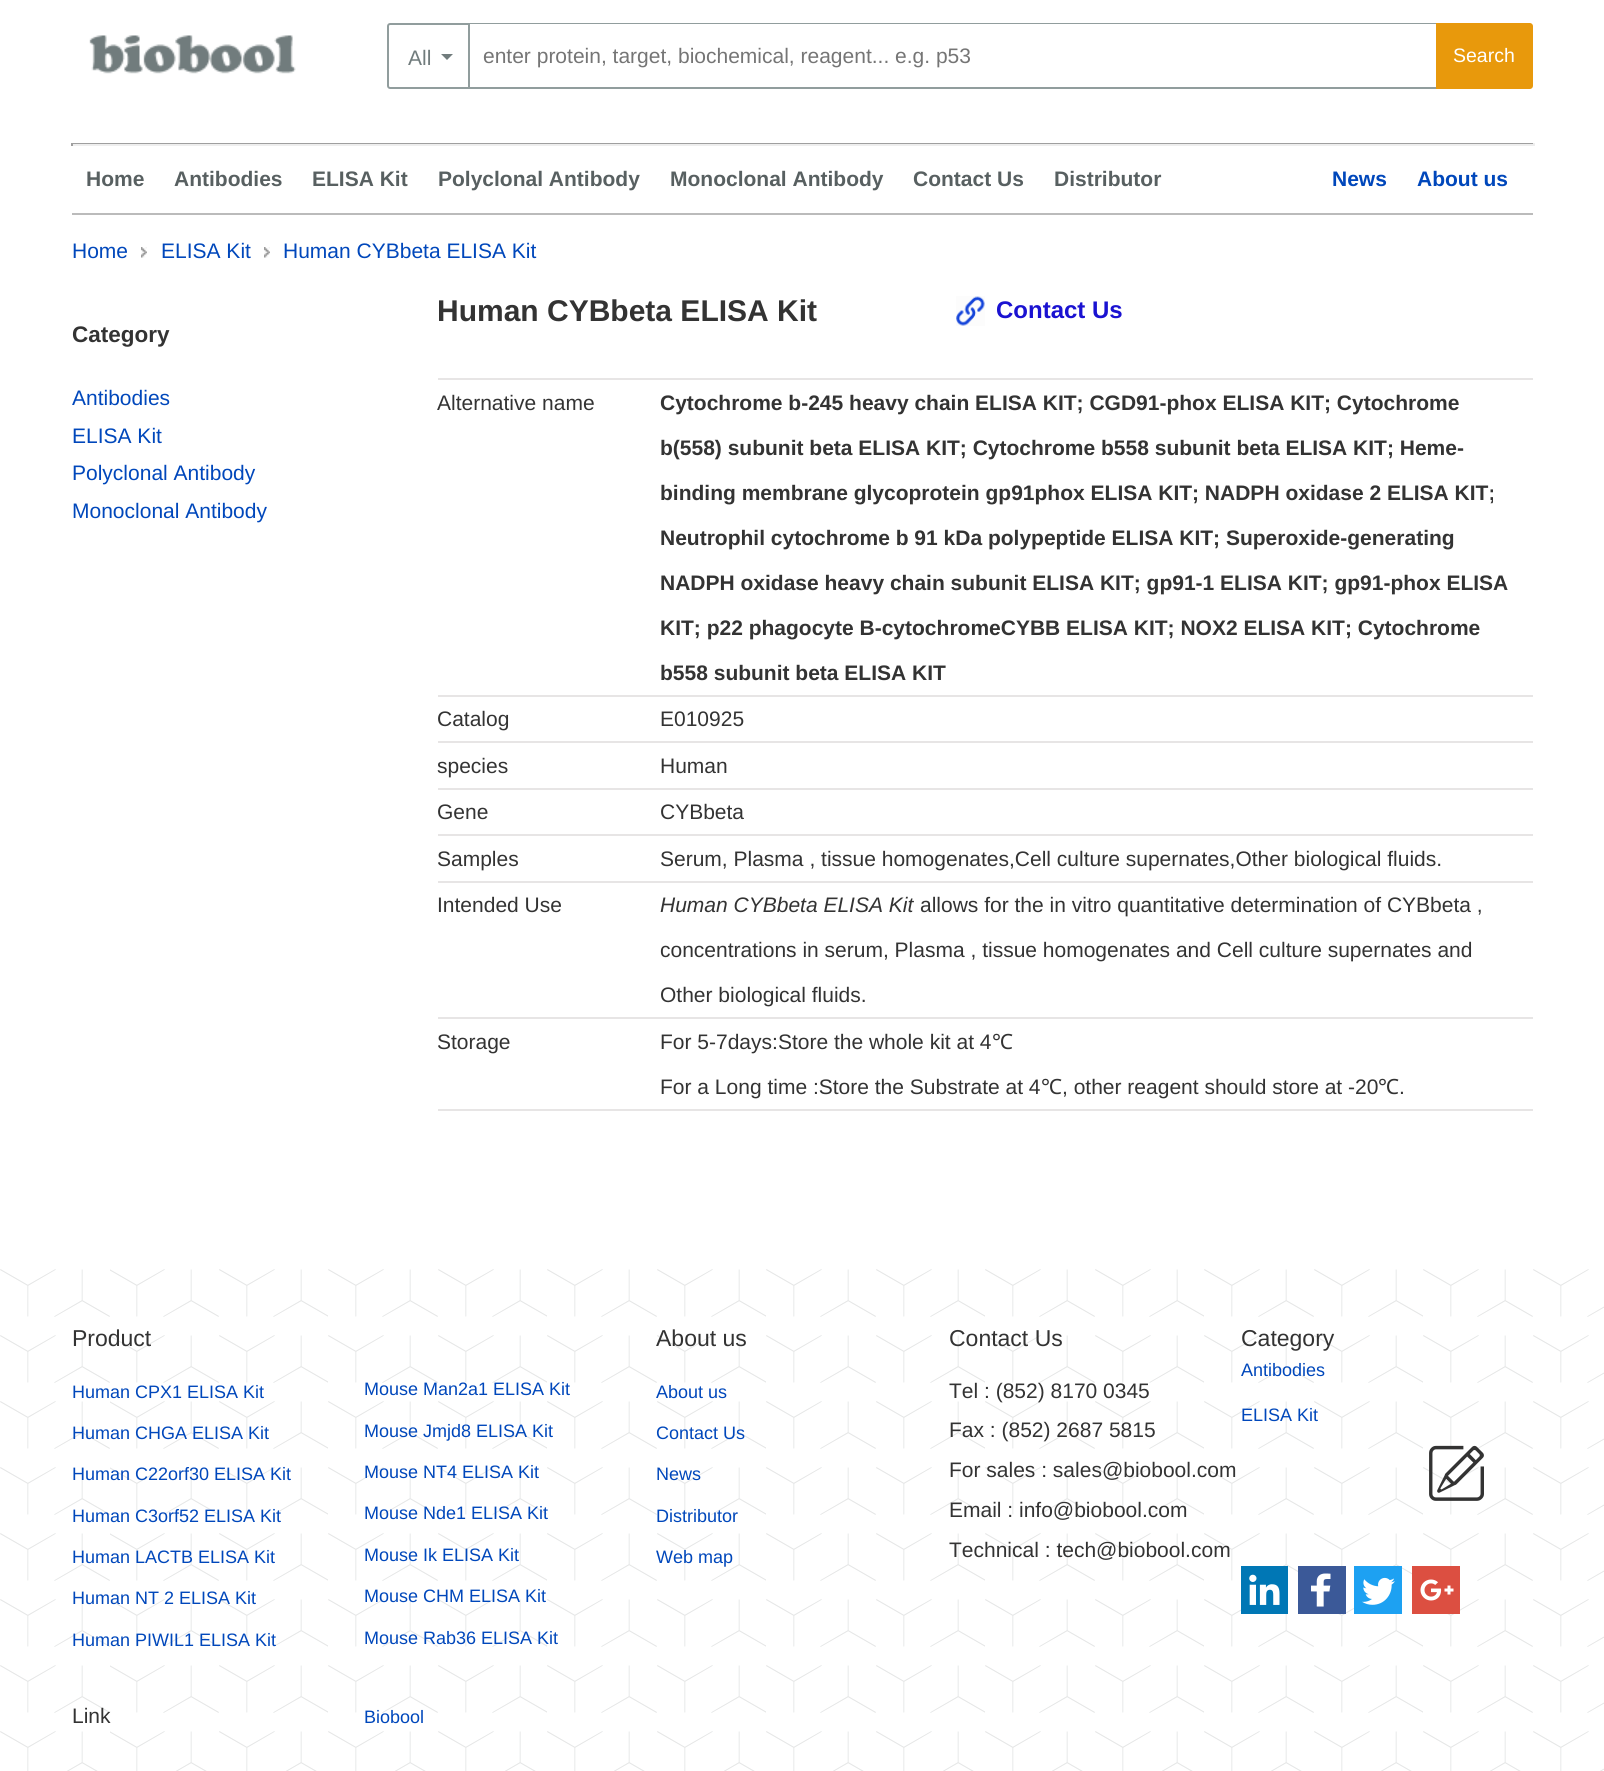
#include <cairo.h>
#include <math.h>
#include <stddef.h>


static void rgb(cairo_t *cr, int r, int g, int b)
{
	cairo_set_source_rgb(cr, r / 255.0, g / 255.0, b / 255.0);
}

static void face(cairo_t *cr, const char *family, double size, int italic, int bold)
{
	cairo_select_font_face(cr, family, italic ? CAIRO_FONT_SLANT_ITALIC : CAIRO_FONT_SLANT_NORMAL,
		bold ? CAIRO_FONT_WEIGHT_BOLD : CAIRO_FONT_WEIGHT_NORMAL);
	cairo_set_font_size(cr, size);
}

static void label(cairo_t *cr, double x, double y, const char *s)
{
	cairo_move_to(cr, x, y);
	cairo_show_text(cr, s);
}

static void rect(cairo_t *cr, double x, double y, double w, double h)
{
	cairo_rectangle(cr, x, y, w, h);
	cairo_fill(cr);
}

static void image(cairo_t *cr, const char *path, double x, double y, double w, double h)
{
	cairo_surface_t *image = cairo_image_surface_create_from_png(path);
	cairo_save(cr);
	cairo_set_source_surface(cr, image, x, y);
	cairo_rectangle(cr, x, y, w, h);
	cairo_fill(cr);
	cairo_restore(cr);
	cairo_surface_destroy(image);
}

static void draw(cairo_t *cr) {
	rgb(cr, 255, 255, 255);
	cairo_paint(cr);
	image(cr, "image0.png", 89, 35, 207, 39);
	cairo_new_path(cr);
	cairo_move_to(cr, 390, 24);
	cairo_line_to(cr, 469, 24);
	cairo_line_to(cr, 469, 88);
	cairo_line_to(cr, 390, 88);
	cairo_curve_to(cr, 389, 88, 388, 87, 388, 86);
	cairo_line_to(cr, 388, 26);
	cairo_curve_to(cr, 388, 25, 389, 24, 390, 24);
	cairo_close_path(cr);
	rgb(cr, 145, 157, 157);
	cairo_stroke(cr);
	face(cr, "Liberation Sans", 21, 0, 0);
	rgb(cr, 113, 124, 125);
	label(cr, 408, 65, "All");
	cairo_new_path(cr);
	cairo_move_to(cr, 441, 54);
	cairo_line_to(cr, 453, 54);
	cairo_line_to(cr, 447, 60);
	cairo_close_path(cr);
	cairo_fill(cr);
	rgb(cr, 145, 157, 157);
	rect(cr, 470, 23, 966, 1);
	rect(cr, 470, 87, 966, 2);
	rgb(cr, 117, 117, 117);
	label(cr, 483, 63, "enter protein, target, biochemical, reagent... e.g. p53");
	rgb(cr, 232, 153, 12);
	cairo_new_path(cr);
	cairo_move_to(cr, 1436, 23);
	cairo_line_to(cr, 1530, 23);
	cairo_curve_to(cr, 1531.5, 23, 1533, 24.5, 1533, 26);
	cairo_line_to(cr, 1533, 86);
	cairo_curve_to(cr, 1533, 87.5, 1531.5, 89, 1530, 89);
	cairo_line_to(cr, 1436, 89);
	cairo_close_path(cr);
	cairo_fill(cr);
	face(cr, "Liberation Sans", 19.5, 0, 0);
	rgb(cr, 255, 255, 255);
	label(cr, 1453, 62, "Search");
	rgb(cr, 159, 159, 159);
	rect(cr, 71, 143, 1464, 1);
	rgb(cr, 238, 238, 238);
	rect(cr, 1533, 143, 2, 3);
	rect(cr, 71, 144, 1464, 2);
	rgb(cr, 159, 159, 159);
	rect(cr, 71, 143, 2, 3);
	face(cr, "Liberation Sans", 21, 0, 1);
	rgb(cr, 88, 96, 97);
	label(cr, 86, 186, "Home");
	label(cr, 174, 186, "Antibodies");
	label(cr, 312, 186, "ELISA Kit");
	label(cr, 438, 186, "Polyclonal Antibody");
	label(cr, 670, 186, "Monoclonal Antibody");
	label(cr, 913, 186, "Contact Us");
	label(cr, 1054, 186, "Distributor");
	rgb(cr, 0, 71, 187);
	label(cr, 1332, 186, "News");
	label(cr, 1417, 186, "About us");
	rgb(cr, 187, 187, 187);
	rect(cr, 72, 213, 1461, 2);
	face(cr, "Liberation Sans", 21, 0, 0);
	rgb(cr, 0, 71, 187);
	label(cr, 72, 258, "Home");
	image(cr, "image1.png", 141, 247, 6, 11);
	label(cr, 161, 258, "ELISA Kit");
	image(cr, "image2.png", 264, 247, 6, 11);
	label(cr, 283, 258, "Human CYBbeta ELISA Kit");
	face(cr, "Liberation Sans", 22.5, 0, 1);
	rgb(cr, 51, 51, 51);
	label(cr, 72, 342, "Category");
	face(cr, "Liberation Sans", 21, 0, 0);
	rgb(cr, 0, 71, 187);
	label(cr, 72, 405, "Antibodies");
	label(cr, 72, 443, "ELISA Kit");
	label(cr, 72, 480, "Polyclonal Antibody");
	label(cr, 72, 518, "Monoclonal Antibody");
	face(cr, "Liberation Sans", 30, 0, 1);
	rgb(cr, 51, 51, 51);
	label(cr, 437, 321, "Human CYBbeta ELISA Kit");
	image(cr, "image3.png", 956, 296, 29, 30);
	face(cr, "Liberation Sans", 24, 0, 1);
	rgb(cr, 26, 18, 209);
	label(cr, 996, 318, "Contact Us");
	rgb(cr, 231, 229, 229);
	rect(cr, 438, 378, 1095, 2);
	face(cr, "Liberation Sans", 21, 0, 0);
	rgb(cr, 51, 51, 51);
	label(cr, 437, 410, "Alternative name");
	face(cr, "Liberation Sans", 21, 0, 1);
	label(cr, 660, 410, "Cytochrome b-245 heavy chain ELISA KIT; CGD91-phox ELISA KIT; Cytochrome");
	label(cr, 660, 455, "b(558) subunit beta ELISA KIT; Cytochrome b558 subunit beta ELISA KIT; Heme-");
	label(cr, 660, 500, "binding membrane glycoprotein gp91phox ELISA KIT; NADPH oxidase 2 ELISA KIT;");
	label(cr, 660, 545, "Neutrophil cytochrome b 91 kDa polypeptide ELISA KIT; Superoxide-generating");
	label(cr, 660, 590, "NADPH oxidase heavy chain subunit ELISA KIT; gp91-1 ELISA KIT; gp91-phox ELISA");
	label(cr, 660, 635, "KIT; p22 phagocyte B-cytochromeCYBB ELISA KIT; NOX2 ELISA KIT; Cytochrome");
	label(cr, 660, 680, "b558 subunit beta ELISA KIT");
	rgb(cr, 231, 229, 229);
	rect(cr, 438, 695, 1095, 2);
	face(cr, "Liberation Sans", 21, 0, 0);
	rgb(cr, 51, 51, 51);
	label(cr, 437, 726, "Catalog");
	label(cr, 660, 726, "E010925");
	rgb(cr, 231, 229, 229);
	rect(cr, 438, 741, 1095, 2);
	rgb(cr, 51, 51, 51);
	label(cr, 437, 773, "species");
	label(cr, 660, 773, "Human");
	rgb(cr, 231, 229, 229);
	rect(cr, 438, 788, 1095, 2);
	rgb(cr, 51, 51, 51);
	label(cr, 437, 819, "Gene");
	label(cr, 660, 819, "CYBbeta");
	rgb(cr, 231, 229, 229);
	rect(cr, 438, 834, 1095, 2);
	rgb(cr, 51, 51, 51);
	label(cr, 437, 866, "Samples");
	label(cr, 660, 866, "Serum, Plasma , tissue homogenates,Cell culture supernates,Other biological fluids.");
	rgb(cr, 231, 229, 229);
	rect(cr, 438, 881, 1095, 2);
	rgb(cr, 51, 51, 51);
	label(cr, 437, 912, "Intended Use");
	face(cr, "Liberation Sans", 21, 1, 0);
	label(cr, 660, 912, "Human CYBbeta ELISA Kit");
	face(cr, "Liberation Sans", 21, 0, 0);
	label(cr, 920, 912, "allows for the in vitro quantitative determination of CYBbeta ,");
	label(cr, 660, 957, "concentrations in serum, Plasma , tissue homogenates and Cell culture supernates and");
	label(cr, 660, 1002, "Other biological fluids.");
	rgb(cr, 231, 229, 229);
	rect(cr, 438, 1017, 1095, 2);
	rgb(cr, 51, 51, 51);
	label(cr, 437, 1049, "Storage");
	label(cr, 660, 1049, "For 5-7days:Store the whole kit at 4");
	face(cr, "Noto Sans", 21, 0, 0);
	label(cr, 992, 1049, "℃");
	face(cr, "Liberation Sans", 21, 0, 0);
	label(cr, 660, 1094, "For a Long time :Store the Substrate at 4");
	face(cr, "Noto Sans", 21, 0, 0);
	label(cr, 1041, 1094, "℃");
	face(cr, "Liberation Sans", 21, 0, 0);
	label(cr, 1062, 1094, ", other reagent should store at -20");
	face(cr, "Noto Sans", 21, 0, 0);
	label(cr, 1378, 1094, "℃");
	face(cr, "Liberation Sans", 21, 0, 0);
	label(cr, 1399, 1094, ".");
	rgb(cr, 231, 229, 229);
	rect(cr, 438, 1109, 1095, 2);
	image(cr, "image4.png", 0, 1269, 1604, 502);
	face(cr, "Liberation Sans", 23, 0, 0);
	rgb(cr, 51, 51, 51);
	label(cr, 72, 1346, "Product");
	face(cr, "Liberation Sans", 18, 0, 0);
	rgb(cr, 0, 71, 187);
	label(cr, 72, 1398, "Human CPX1 ELISA Kit");
	label(cr, 72, 1439, "Human CHGA ELISA Kit");
	label(cr, 72, 1480, "Human C22orf30 ELISA Kit");
	label(cr, 72, 1522, "Human C3orf52 ELISA Kit");
	label(cr, 72, 1563, "Human LACTB ELISA Kit");
	label(cr, 72, 1604, "Human NT 2 ELISA Kit");
	label(cr, 72, 1646, "Human PIWIL1 ELISA Kit");
	label(cr, 364, 1395, "Mouse Man2a1 ELISA Kit");
	label(cr, 364, 1437, "Mouse Jmjd8 ELISA Kit");
	label(cr, 364, 1478, "Mouse NT4 ELISA Kit");
	label(cr, 364, 1519, "Mouse Nde1 ELISA Kit");
	label(cr, 364, 1561, "Mouse Ik ELISA Kit");
	label(cr, 364, 1602, "Mouse CHM ELISA Kit");
	label(cr, 364, 1644, "Mouse Rab36 ELISA Kit");
	face(cr, "Liberation Sans", 23, 0, 0);
	rgb(cr, 51, 51, 51);
	label(cr, 656, 1346, "About us");
	face(cr, "Liberation Sans", 18, 0, 0);
	rgb(cr, 0, 71, 187);
	label(cr, 656, 1398, "About us");
	label(cr, 656, 1439, "Contact Us");
	label(cr, 656, 1480, "News");
	label(cr, 656, 1522, "Distributor");
	label(cr, 656, 1563, "Web map");
	face(cr, "Liberation Sans", 23, 0, 0);
	rgb(cr, 51, 51, 51);
	label(cr, 949, 1346, "Contact Us");
	face(cr, "Liberation Sans", 21, 0, 0);
	label(cr, 949, 1398, "Tel : (852) 8170 0345");
	label(cr, 949, 1437, "Fax : (852) 2687 5815");
	label(cr, 949, 1477, "For sales : sales@biobool.com");
	label(cr, 949, 1517, "Email : info@biobool.com");
	label(cr, 949, 1557, "Technical : tech@biobool.com");
	face(cr, "Liberation Sans", 23, 0, 0);
	label(cr, 1241, 1346, "Category");
	face(cr, "Liberation Sans", 18, 0, 0);
	rgb(cr, 0, 71, 187);
	label(cr, 1241, 1376, "Antibodies");
	label(cr, 1241, 1421, "ELISA Kit");
	image(cr, "image5.png", 1241, 1566, 219, 48);
	face(cr, "Liberation Sans", 21, 0, 0);
	rgb(cr, 51, 51, 51);
	label(cr, 72, 1723, "Link");
	face(cr, "Liberation Sans", 18, 0, 0);
	rgb(cr, 0, 71, 187);
	label(cr, 364, 1723, "Biobool");
	image(cr, "image6.png", 1429, 1445, 55, 56);
}

int main(void) {
	cairo_surface_t *surface = cairo_image_surface_create(CAIRO_FORMAT_RGB24, 1604, 1771);
	cairo_t *cr = cairo_create(surface);
	cairo_font_options_t *options = cairo_font_options_create();
	cairo_font_options_set_hint_metrics(options, CAIRO_HINT_METRICS_OFF);
	cairo_font_options_set_hint_style(options, CAIRO_HINT_STYLE_NONE);
	cairo_set_font_options(cr, options);
	cairo_set_miter_limit(cr, 4);
	draw(cr);
	cairo_surface_write_to_png(surface, "render.png");
	cairo_font_options_destroy(options);
	cairo_destroy(cr);
	cairo_surface_destroy(surface);
	return 0;
}
